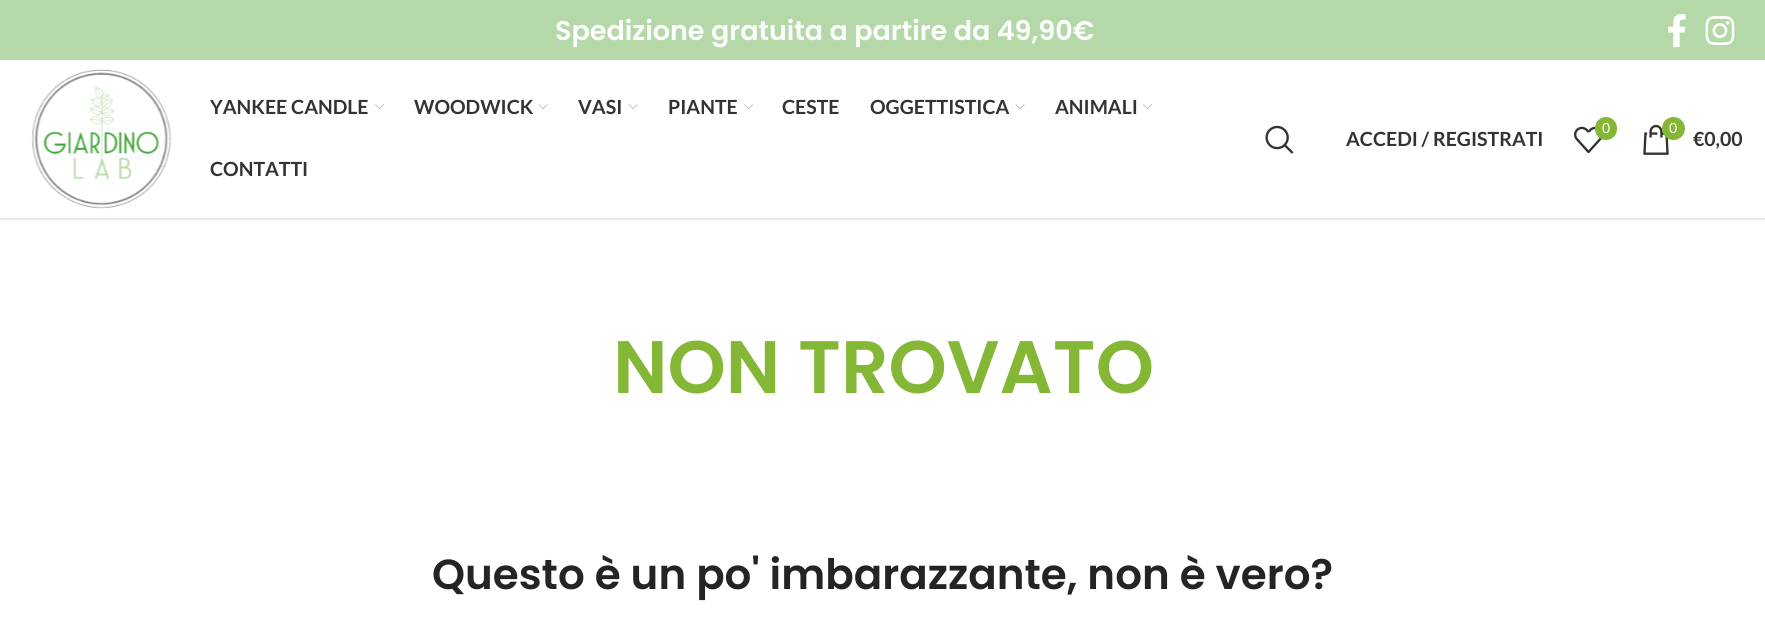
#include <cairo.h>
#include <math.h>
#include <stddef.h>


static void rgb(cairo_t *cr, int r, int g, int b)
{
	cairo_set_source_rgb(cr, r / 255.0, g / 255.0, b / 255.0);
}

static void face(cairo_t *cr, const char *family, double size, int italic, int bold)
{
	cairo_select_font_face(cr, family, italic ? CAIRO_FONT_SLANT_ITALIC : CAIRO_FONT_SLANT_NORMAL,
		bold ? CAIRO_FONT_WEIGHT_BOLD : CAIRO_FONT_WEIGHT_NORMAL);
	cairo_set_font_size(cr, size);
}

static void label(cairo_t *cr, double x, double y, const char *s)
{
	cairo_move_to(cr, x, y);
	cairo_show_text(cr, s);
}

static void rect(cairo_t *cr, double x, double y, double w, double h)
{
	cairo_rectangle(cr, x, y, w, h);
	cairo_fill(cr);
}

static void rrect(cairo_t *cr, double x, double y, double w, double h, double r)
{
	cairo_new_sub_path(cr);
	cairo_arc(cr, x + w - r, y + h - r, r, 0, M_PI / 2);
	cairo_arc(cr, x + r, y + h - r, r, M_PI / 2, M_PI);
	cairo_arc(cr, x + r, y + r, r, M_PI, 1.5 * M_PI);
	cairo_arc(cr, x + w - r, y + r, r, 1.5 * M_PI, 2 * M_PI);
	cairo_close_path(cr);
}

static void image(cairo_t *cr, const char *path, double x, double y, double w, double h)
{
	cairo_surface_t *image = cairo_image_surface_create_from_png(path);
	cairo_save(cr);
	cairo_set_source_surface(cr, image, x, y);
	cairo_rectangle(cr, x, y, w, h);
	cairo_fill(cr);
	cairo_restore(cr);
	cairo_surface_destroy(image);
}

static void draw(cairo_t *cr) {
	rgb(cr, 255, 255, 255);
	cairo_paint(cr);
	rgb(cr, 180, 216, 168);
	rect(cr, 0, 0, 1765, 60);
	face(cr, "Poppins SemiBold", 27, 0, 0);
	rgb(cr, 255, 255, 255);
	label(cr, 555, 40, "Spedizione gratuita a partire da 49,90€");
	image(cr, "image0.png", 1668, 14, 18, 34);
	image(cr, "image1.png", 1705, 16, 30, 29);
	rgb(cr, 232, 232, 232);
	rect(cr, 0, 218, 1765, 2);
	image(cr, "image2.png", 31, 69, 141, 140);
	face(cr, "Lato", 19.5, 0, 1);
	rgb(cr, 51, 51, 51);
	label(cr, 210, 114, "YANKEE CANDLE");
	image(cr, "image3.png", 375, 104, 9, 6);
	label(cr, 414, 114, "WOODWICK");
	image(cr, "image4.png", 538, 104, 10, 6);
	label(cr, 578, 114, "VASI");
	image(cr, "image4.png", 628, 104, 10, 6);
	label(cr, 668, 114, "PIANTE");
	image(cr, "image3.png", 744, 104, 9, 6);
	label(cr, 782, 114, "CESTE");
	label(cr, 870, 114, "OGGETTISTICA");
	image(cr, "image4.png", 1015, 104, 10, 6);
	label(cr, 1055, 114, "ANIMALI");
	image(cr, "image3.png", 1143, 104, 9, 6);
	label(cr, 210, 176, "CONTATTI");
	image(cr, "image5.png", 1265, 125, 29, 29);
	label(cr, 1346, 146, "ACCEDI / REGISTRATI");
	image(cr, "image6.png", 1574, 126, 28, 27);
	rgb(cr, 131, 183, 53);
	rrect(cr, 1595, 117, 22, 23, 11);
	cairo_fill(cr);
	face(cr, "Lato", 14, 0, 0);
	rgb(cr, 255, 255, 255);
	label(cr, 1602, 133, "0");
	image(cr, "image7.png", 1643, 124, 26, 31);
	rgb(cr, 131, 183, 53);
	cairo_arc(cr, 1673.5, 128.5, 11.5, 0, 2 * M_PI);
	cairo_fill(cr);
	rgb(cr, 255, 255, 255);
	label(cr, 1669, 133, "0");
	face(cr, "Lato", 19.5, 0, 1);
	rgb(cr, 51, 51, 51);
	label(cr, 1693, 146, "€0,00");
	face(cr, "Poppins SemiBold", 74.25, 0, 0);
	rgb(cr, 131, 183, 53);
	label(cr, 613, 393, "NON TROVATO");
	face(cr, "Poppins SemiBold", 42, 0, 0);
	rgb(cr, 36, 36, 36);
	label(cr, 432, 589, "Questo è un po' imbarazzante, non è vero?");
}

int main(void) {
	cairo_surface_t *surface = cairo_image_surface_create(CAIRO_FORMAT_RGB24, 1765, 644);
	cairo_t *cr = cairo_create(surface);
	cairo_font_options_t *options = cairo_font_options_create();
	cairo_font_options_set_hint_metrics(options, CAIRO_HINT_METRICS_OFF);
	cairo_font_options_set_hint_style(options, CAIRO_HINT_STYLE_NONE);
	cairo_set_font_options(cr, options);
	cairo_set_miter_limit(cr, 4);
	draw(cr);
	cairo_surface_write_to_png(surface, "render.png");
	cairo_font_options_destroy(options);
	cairo_destroy(cr);
	cairo_surface_destroy(surface);
	return 0;
}
